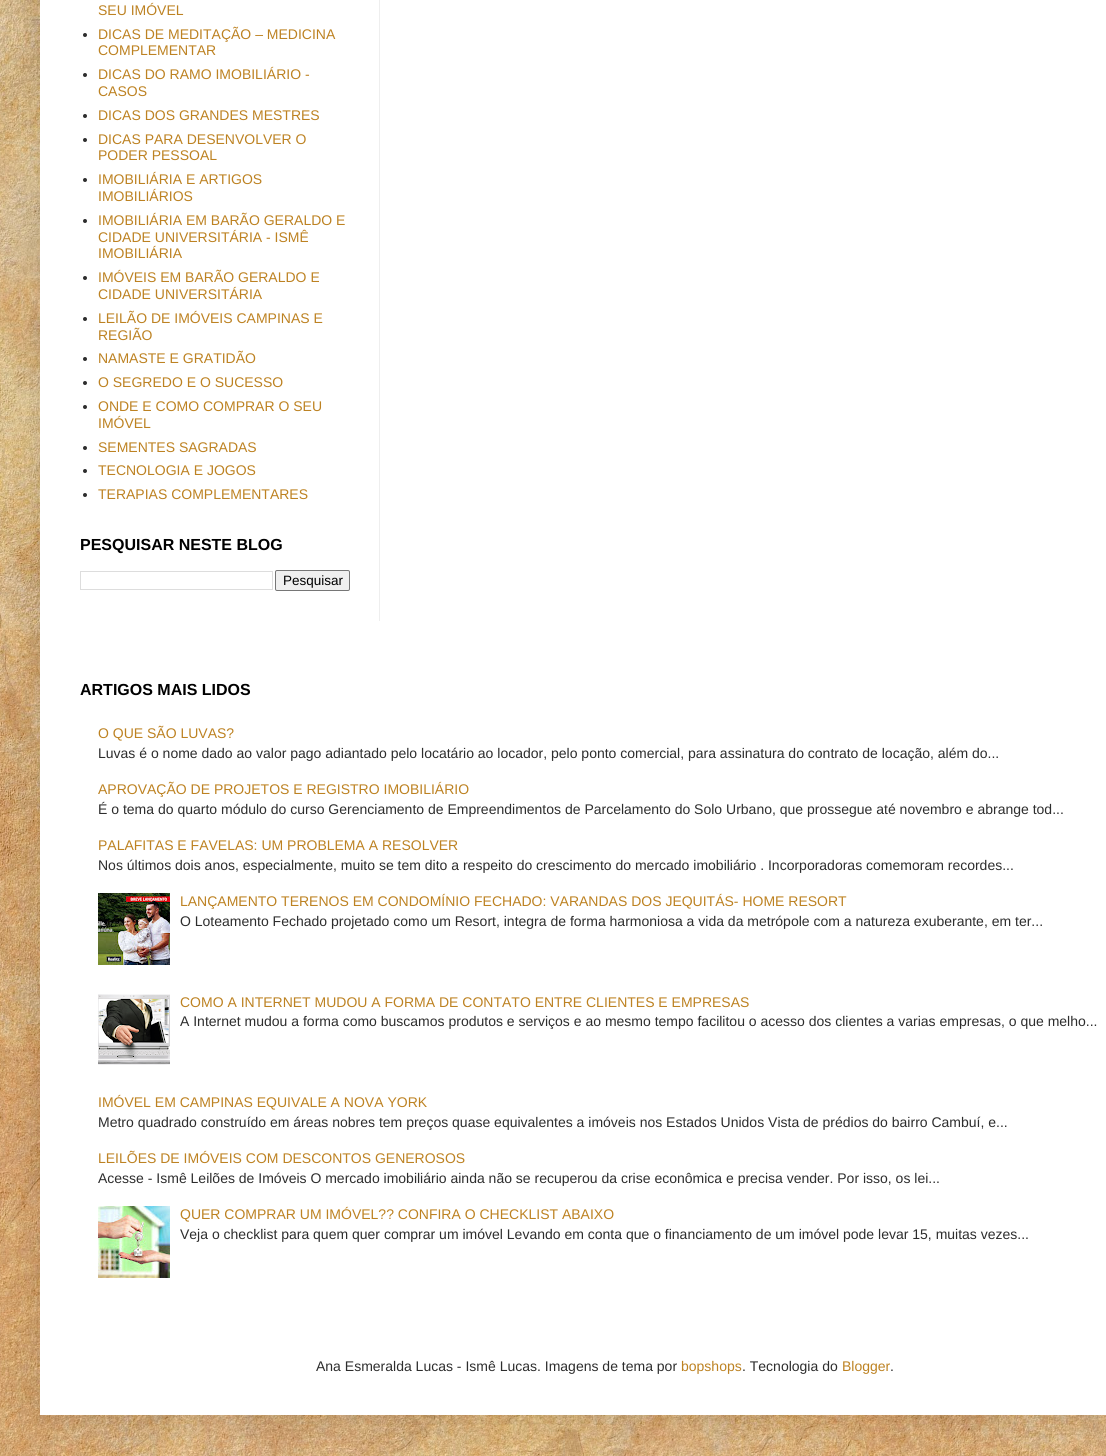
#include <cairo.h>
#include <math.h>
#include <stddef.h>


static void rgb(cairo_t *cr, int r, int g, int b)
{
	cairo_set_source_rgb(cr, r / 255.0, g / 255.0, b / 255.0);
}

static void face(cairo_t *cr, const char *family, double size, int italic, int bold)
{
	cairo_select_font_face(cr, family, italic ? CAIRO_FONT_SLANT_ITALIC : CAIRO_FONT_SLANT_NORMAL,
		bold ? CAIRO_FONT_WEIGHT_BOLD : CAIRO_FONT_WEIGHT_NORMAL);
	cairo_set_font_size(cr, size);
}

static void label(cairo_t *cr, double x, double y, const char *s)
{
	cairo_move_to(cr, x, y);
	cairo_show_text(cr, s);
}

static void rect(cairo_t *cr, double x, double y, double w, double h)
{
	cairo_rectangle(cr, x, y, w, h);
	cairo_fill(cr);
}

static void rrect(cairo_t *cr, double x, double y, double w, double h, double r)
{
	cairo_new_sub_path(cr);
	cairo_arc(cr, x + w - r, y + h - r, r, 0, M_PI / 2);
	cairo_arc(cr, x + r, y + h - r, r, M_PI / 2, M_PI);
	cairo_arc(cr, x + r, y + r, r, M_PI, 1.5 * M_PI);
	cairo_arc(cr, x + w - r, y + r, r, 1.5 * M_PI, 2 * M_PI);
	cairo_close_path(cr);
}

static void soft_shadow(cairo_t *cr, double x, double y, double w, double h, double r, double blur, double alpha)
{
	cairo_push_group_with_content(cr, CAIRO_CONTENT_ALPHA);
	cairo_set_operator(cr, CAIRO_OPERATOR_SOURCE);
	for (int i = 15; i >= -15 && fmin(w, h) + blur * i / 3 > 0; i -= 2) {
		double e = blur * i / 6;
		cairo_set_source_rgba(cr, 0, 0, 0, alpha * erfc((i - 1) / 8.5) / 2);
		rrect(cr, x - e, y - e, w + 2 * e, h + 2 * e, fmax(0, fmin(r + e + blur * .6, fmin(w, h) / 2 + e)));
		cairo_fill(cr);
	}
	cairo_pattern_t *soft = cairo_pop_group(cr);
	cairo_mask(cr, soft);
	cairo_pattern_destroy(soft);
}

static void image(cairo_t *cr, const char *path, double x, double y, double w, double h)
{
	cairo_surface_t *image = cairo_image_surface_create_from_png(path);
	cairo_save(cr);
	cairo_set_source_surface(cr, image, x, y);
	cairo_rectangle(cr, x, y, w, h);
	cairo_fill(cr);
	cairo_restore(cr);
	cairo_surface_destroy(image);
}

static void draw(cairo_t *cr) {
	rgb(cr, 255, 255, 255);
	cairo_paint(cr);
	image(cr, "image0.png", 0, 0, 1106, 1456);
	rgb(cr, 0, 0, 0);
	soft_shadow(cr, 40, -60, 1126, 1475, 0, 20, 0.15);
	rgb(cr, 255, 255, 255);
	rect(cr, 40, 0, 1066, 1415);
	face(cr, "Liberation Sans", 14, 0, 0);
	rgb(cr, 189, 130, 34);
	label(cr, 98, 15, "SEU IMÓVEL");
	rgb(cr, 45, 45, 45);
	cairo_new_path(cr);
	cairo_arc(cr, 85, 35, 2, 0, 2 * M_PI);
	cairo_fill(cr);
	rgb(cr, 189, 130, 34);
	label(cr, 98, 39, "DICAS DE MEDITAÇÃO – MEDICINA");
	label(cr, 98, 55, "COMPLEMENTAR");
	rgb(cr, 45, 45, 45);
	cairo_new_path(cr);
	cairo_arc(cr, 85, 75, 2, 0, 2 * M_PI);
	cairo_fill(cr);
	rgb(cr, 189, 130, 34);
	label(cr, 98, 79, "DICAS DO RAMO IMOBILIÁRIO -");
	label(cr, 98, 96, "CASOS");
	rgb(cr, 45, 45, 45);
	cairo_new_path(cr);
	cairo_arc(cr, 85, 116, 2, 0, 2 * M_PI);
	cairo_fill(cr);
	rgb(cr, 189, 130, 34);
	label(cr, 98, 120, "DICAS DOS GRANDES MESTRES");
	rgb(cr, 45, 45, 45);
	cairo_new_path(cr);
	cairo_arc(cr, 85, 140, 2, 0, 2 * M_PI);
	cairo_fill(cr);
	rgb(cr, 189, 130, 34);
	label(cr, 98, 144, "DICAS PARA DESENVOLVER O");
	label(cr, 98, 160, "PODER PESSOAL");
	rgb(cr, 45, 45, 45);
	cairo_new_path(cr);
	cairo_arc(cr, 85, 180, 2, 0, 2 * M_PI);
	cairo_fill(cr);
	rgb(cr, 189, 130, 34);
	label(cr, 98, 184, "IMOBILIÁRIA E ARTIGOS");
	label(cr, 98, 201, "IMOBILIÁRIOS");
	rgb(cr, 45, 45, 45);
	cairo_new_path(cr);
	cairo_arc(cr, 85, 221, 2, 0, 2 * M_PI);
	cairo_fill(cr);
	rgb(cr, 189, 130, 34);
	label(cr, 98, 225, "IMOBILIÁRIA EM BARÃO GERALDO E");
	label(cr, 98, 242, "CIDADE UNIVERSITÁRIA - ISMÊ");
	label(cr, 98, 258, "IMOBILIÁRIA");
	rgb(cr, 45, 45, 45);
	cairo_new_path(cr);
	cairo_arc(cr, 85, 278, 2, 0, 2 * M_PI);
	cairo_fill(cr);
	rgb(cr, 189, 130, 34);
	label(cr, 98, 282, "IMÓVEIS EM BARÃO GERALDO E");
	label(cr, 98, 299, "CIDADE UNIVERSITÁRIA");
	rgb(cr, 45, 45, 45);
	cairo_new_path(cr);
	cairo_arc(cr, 85, 319, 2, 0, 2 * M_PI);
	cairo_fill(cr);
	rgb(cr, 189, 130, 34);
	label(cr, 98, 323, "LEILÃO DE IMÓVEIS CAMPINAS E");
	label(cr, 98, 340, "REGIÃO");
	rgb(cr, 45, 45, 45);
	cairo_new_path(cr);
	cairo_arc(cr, 85, 359, 2, 0, 2 * M_PI);
	cairo_fill(cr);
	rgb(cr, 189, 130, 34);
	label(cr, 98, 363, "NAMASTE E GRATIDÃO");
	rgb(cr, 45, 45, 45);
	cairo_new_path(cr);
	cairo_arc(cr, 85, 383, 2, 0, 2 * M_PI);
	cairo_fill(cr);
	rgb(cr, 189, 130, 34);
	label(cr, 98, 387, "O SEGREDO E O SUCESSO");
	rgb(cr, 45, 45, 45);
	cairo_new_path(cr);
	cairo_arc(cr, 85, 407, 2, 0, 2 * M_PI);
	cairo_fill(cr);
	rgb(cr, 189, 130, 34);
	label(cr, 98, 411, "ONDE E COMO COMPRAR O SEU");
	label(cr, 98, 428, "IMÓVEL");
	rgb(cr, 45, 45, 45);
	cairo_new_path(cr);
	cairo_arc(cr, 85, 448, 2, 0, 2 * M_PI);
	cairo_fill(cr);
	rgb(cr, 189, 130, 34);
	label(cr, 98, 452, "SEMENTES SAGRADAS");
	rgb(cr, 45, 45, 45);
	cairo_new_path(cr);
	cairo_arc(cr, 85, 471, 2, 0, 2 * M_PI);
	cairo_fill(cr);
	rgb(cr, 189, 130, 34);
	label(cr, 98, 475, "TECNOLOGIA E JOGOS");
	rgb(cr, 45, 45, 45);
	cairo_new_path(cr);
	cairo_arc(cr, 85, 495, 2, 0, 2 * M_PI);
	cairo_fill(cr);
	rgb(cr, 189, 130, 34);
	label(cr, 98, 499, "TERAPIAS COMPLEMENTARES");
	face(cr, "Liberation Sans", 16, 0, 1);
	rgb(cr, 0, 0, 0);
	label(cr, 80, 550, "PESQUISAR NESTE BLOG");
	cairo_rectangle(cr, 80.5, 571.5, 192, 18);
	rgb(cr, 221, 221, 221);
	cairo_set_line_width(cr, 1);
	cairo_stroke(cr);
	rgb(cr, 239, 239, 239);
	rrect(cr, 275.5, 570.5, 74, 20, 1.5);
	cairo_fill_preserve(cr);
	rgb(cr, 118, 118, 118);
	cairo_stroke(cr);
	face(cr, "Liberation Sans", 13.5, 0, 0);
	rgb(cr, 0, 0, 0);
	label(cr, 283, 585, "Pesquisar");
	rgb(cr, 238, 238, 238);
	rect(cr, 379, 0, 1, 621);
	face(cr, "Liberation Sans", 16, 0, 1);
	rgb(cr, 0, 0, 0);
	label(cr, 80, 695, "ARTIGOS MAIS LIDOS");
	face(cr, "Liberation Sans", 14, 0, 0);
	rgb(cr, 189, 130, 34);
	label(cr, 98, 738, "O QUE SÃO LUVAS?");
	rgb(cr, 45, 45, 45);
	label(cr, 98, 758, "Luvas é o nome dado ao valor pago adiantado pelo locatário ao locador, pelo ponto comercial, para assinatura do contrato de locação, além do...");
	rgb(cr, 189, 130, 34);
	label(cr, 98, 794, "APROVAÇÃO DE PROJETOS E REGISTRO IMOBILIÁRIO");
	rgb(cr, 45, 45, 45);
	label(cr, 98, 814, "É o tema do quarto módulo do curso Gerenciamento de Empreendimentos de Parcelamento do Solo Urbano, que prossegue até novembro e abrange tod...");
	rgb(cr, 189, 130, 34);
	label(cr, 98, 850, "PALAFITAS E FAVELAS: UM PROBLEMA A RESOLVER");
	rgb(cr, 45, 45, 45);
	label(cr, 98, 870, "Nos últimos dois anos, especialmente, muito se tem dito a respeito do crescimento do mercado imobiliário . Incorporadoras comemoram recordes...");
	image(cr, "image1.png", 98, 893, 72, 72);
	rgb(cr, 189, 130, 34);
	label(cr, 180, 906, "LANÇAMENTO TERENOS EM CONDOMÍNIO FECHADO: VARANDAS DOS JEQUITÁS- HOME RESORT");
	rgb(cr, 45, 45, 45);
	label(cr, 180, 926, "O Loteamento Fechado projetado como um Resort, integra de forma harmoniosa a vida da metrópole com a natureza exuberante, em ter...");
	image(cr, "image2.png", 98, 994, 72, 71);
	rgb(cr, 189, 130, 34);
	label(cr, 180, 1007, "COMO A INTERNET MUDOU A FORMA DE CONTATO ENTRE CLIENTES E EMPRESAS");
	rgb(cr, 45, 45, 45);
	label(cr, 180, 1026, "A Internet mudou a forma como buscamos produtos e serviços e ao mesmo tempo facilitou o acesso dos clientes a varias empresas, o que melho...");
	rgb(cr, 189, 130, 34);
	label(cr, 98, 1107, "IMÓVEL EM CAMPINAS EQUIVALE A NOVA YORK");
	rgb(cr, 45, 45, 45);
	label(cr, 98, 1127, "Metro quadrado construído em áreas nobres tem preços quase equivalentes a imóveis nos Estados Unidos Vista de prédios do bairro Cambuí, e...");
	rgb(cr, 189, 130, 34);
	label(cr, 98, 1163, "LEILÕES DE IMÓVEIS COM DESCONTOS GENEROSOS");
	rgb(cr, 45, 45, 45);
	label(cr, 98, 1183, "Acesse - Ismê Leilões de Imóveis O mercado imobiliário ainda não se recuperou da crise econômica e precisa vender. Por isso, os lei...");
	image(cr, "image3.png", 98, 1206, 72, 72);
	rgb(cr, 189, 130, 34);
	label(cr, 180, 1219, "QUER COMPRAR UM IMÓVEL?\077 CONFIRA O CHECKLIST ABAIXO");
	rgb(cr, 45, 45, 45);
	label(cr, 180, 1239, "Veja o checklist para quem quer comprar um imóvel Levando em conta que o financiamento de um imóvel pode levar 15, muitas vezes...");
	label(cr, 316, 1371, "Ana Esmeralda Lucas - Ismê Lucas. Imagens de tema por");
	rgb(cr, 189, 130, 34);
	label(cr, 681, 1371, "bopshops");
	rgb(cr, 45, 45, 45);
	label(cr, 742, 1371, ". Tecnologia do");
	rgb(cr, 189, 130, 34);
	label(cr, 842, 1371, "Blogger");
	rgb(cr, 45, 45, 45);
	label(cr, 890, 1371, ".");
}

int main(void) {
	cairo_surface_t *surface = cairo_image_surface_create(CAIRO_FORMAT_RGB24, 1106, 1456);
	cairo_t *cr = cairo_create(surface);
	cairo_font_options_t *options = cairo_font_options_create();
	cairo_font_options_set_hint_metrics(options, CAIRO_HINT_METRICS_OFF);
	cairo_font_options_set_hint_style(options, CAIRO_HINT_STYLE_NONE);
	cairo_set_font_options(cr, options);
	cairo_set_miter_limit(cr, 4);
	draw(cr);
	cairo_surface_write_to_png(surface, "render.png");
	cairo_font_options_destroy(options);
	cairo_destroy(cr);
	cairo_surface_destroy(surface);
	return 0;
}
